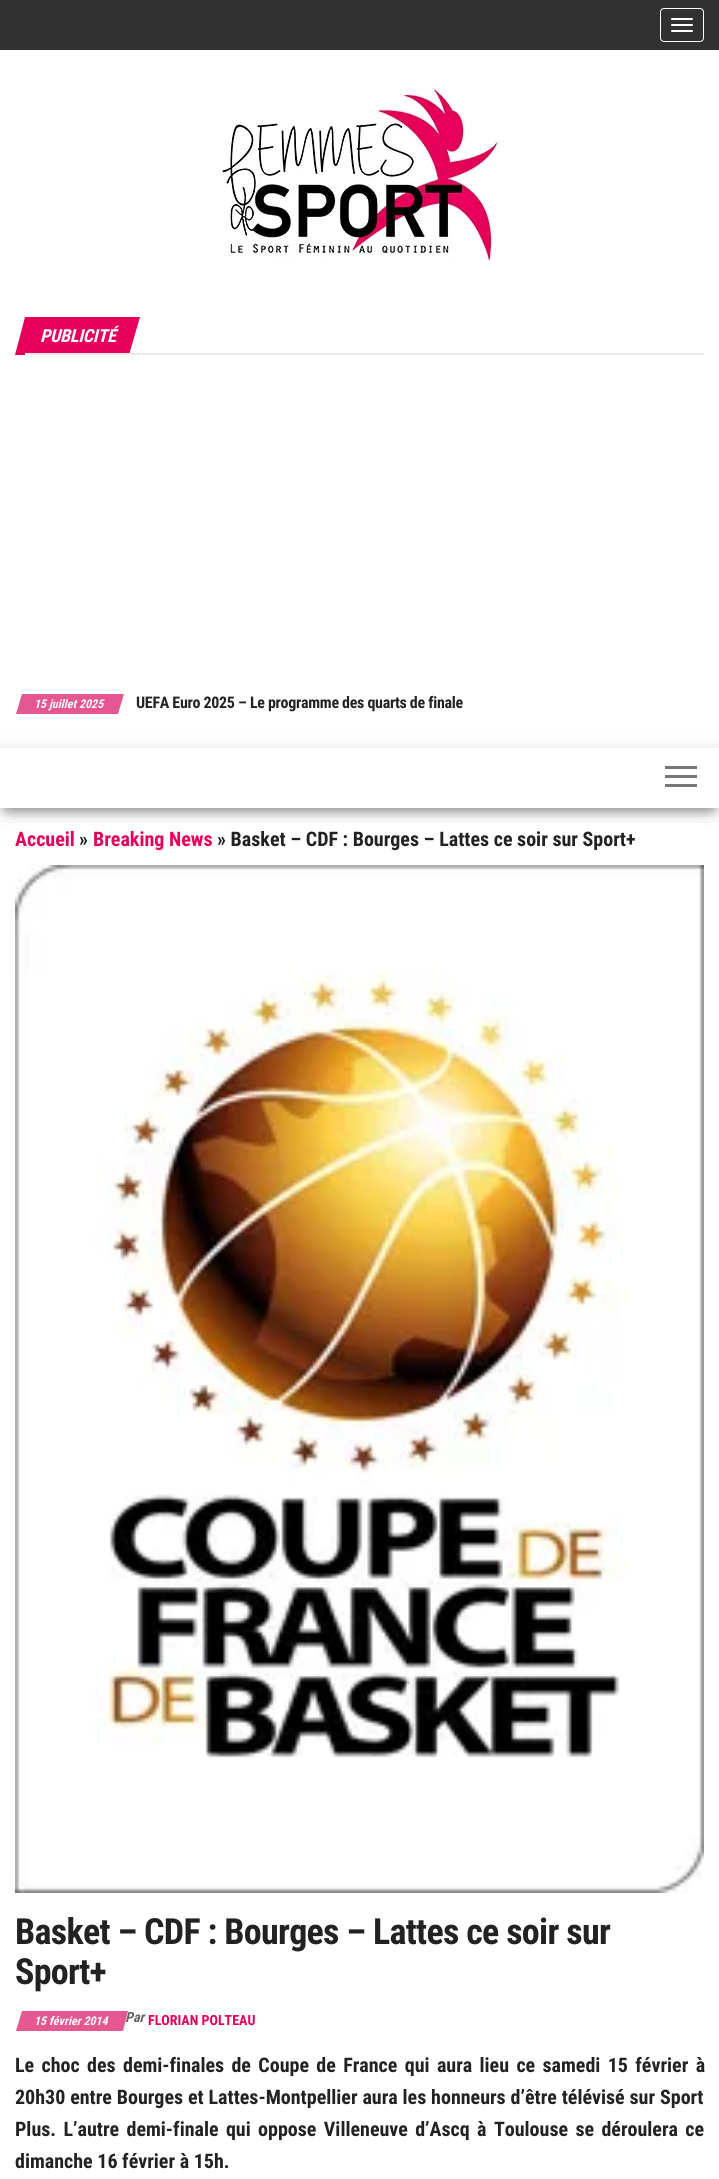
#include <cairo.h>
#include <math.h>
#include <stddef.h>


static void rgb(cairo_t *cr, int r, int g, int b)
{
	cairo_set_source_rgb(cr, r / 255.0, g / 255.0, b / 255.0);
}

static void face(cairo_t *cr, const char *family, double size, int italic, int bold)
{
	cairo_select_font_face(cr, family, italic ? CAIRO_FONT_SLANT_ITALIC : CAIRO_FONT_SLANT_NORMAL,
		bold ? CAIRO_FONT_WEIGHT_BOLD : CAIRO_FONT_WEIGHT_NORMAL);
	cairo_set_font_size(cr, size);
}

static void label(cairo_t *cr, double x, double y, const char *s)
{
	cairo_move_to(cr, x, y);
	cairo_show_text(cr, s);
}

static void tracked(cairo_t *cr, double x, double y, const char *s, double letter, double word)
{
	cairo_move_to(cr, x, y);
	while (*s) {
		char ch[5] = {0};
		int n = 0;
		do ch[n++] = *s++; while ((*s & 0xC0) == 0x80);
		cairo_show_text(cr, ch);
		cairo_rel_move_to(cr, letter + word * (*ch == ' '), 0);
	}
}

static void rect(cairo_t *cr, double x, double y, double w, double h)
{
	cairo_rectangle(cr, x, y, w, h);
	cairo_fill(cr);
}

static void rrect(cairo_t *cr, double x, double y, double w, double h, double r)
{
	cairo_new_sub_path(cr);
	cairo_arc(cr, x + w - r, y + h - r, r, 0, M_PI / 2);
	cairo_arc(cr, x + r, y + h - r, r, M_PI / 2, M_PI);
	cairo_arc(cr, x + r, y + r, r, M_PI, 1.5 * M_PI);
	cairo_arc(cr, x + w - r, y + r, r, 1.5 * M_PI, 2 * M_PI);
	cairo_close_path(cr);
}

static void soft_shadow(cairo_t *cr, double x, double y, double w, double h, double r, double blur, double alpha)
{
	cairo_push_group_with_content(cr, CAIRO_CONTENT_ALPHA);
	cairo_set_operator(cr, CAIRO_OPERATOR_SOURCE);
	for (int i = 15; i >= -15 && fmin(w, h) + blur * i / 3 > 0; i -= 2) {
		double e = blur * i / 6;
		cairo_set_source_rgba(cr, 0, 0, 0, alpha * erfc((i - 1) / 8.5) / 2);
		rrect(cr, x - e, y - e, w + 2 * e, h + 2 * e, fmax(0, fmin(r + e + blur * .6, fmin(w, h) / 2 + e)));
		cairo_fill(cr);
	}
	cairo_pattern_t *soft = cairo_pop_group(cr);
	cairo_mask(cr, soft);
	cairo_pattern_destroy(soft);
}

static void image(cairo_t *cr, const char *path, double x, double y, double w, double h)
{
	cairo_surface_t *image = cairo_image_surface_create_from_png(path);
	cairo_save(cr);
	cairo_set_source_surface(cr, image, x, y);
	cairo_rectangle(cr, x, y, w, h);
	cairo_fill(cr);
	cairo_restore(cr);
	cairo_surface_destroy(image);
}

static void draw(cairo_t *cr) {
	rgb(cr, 255, 255, 255);
	cairo_paint(cr);
	rgb(cr, 49, 49, 49);
	rect(cr, 0, 0, 719, 50);
	rrect(cr, 660.5, 8.5, 43, 33, 3.5);
	rgb(cr, 255, 255, 255);
	cairo_set_line_width(cr, 1);
	cairo_stroke(cr);
	rrect(cr, 671, 18, 22, 2, 1);
	cairo_fill(cr);
	rrect(cr, 671, 24, 22, 2, 1);
	cairo_fill(cr);
	rrect(cr, 671, 30, 22, 2, 1);
	cairo_fill(cr);
	image(cr, "image0.png", 220, 83, 279, 179);
	rgb(cr, 230, 0, 91);
	cairo_new_path(cr);
	cairo_move_to(cr, 25, 317);
	cairo_line_to(cr, 140, 317);
	cairo_line_to(cr, 129, 355);
	cairo_line_to(cr, 15, 355);
	cairo_close_path(cr);
	cairo_fill(cr);
	face(cr, "Roboto Condensed", 18, 1, 1);
	rgb(cr, 255, 255, 255);
	tracked(cr, 40, 342, "PUBLICITÉ", -0.25, 0);
	rgb(cr, 234, 234, 234);
	rect(cr, 25, 353, 679, 2);
	rgb(cr, 229, 87, 144);
	cairo_new_path(cr);
	cairo_move_to(cr, 22, 694);
	cairo_line_to(cr, 124, 694);
	cairo_line_to(cr, 118, 714);
	cairo_line_to(cr, 16, 714);
	cairo_close_path(cr);
	cairo_fill(cr);
	face(cr, "Roboto Condensed", 12, 1, 1);
	rgb(cr, 255, 255, 255);
	label(cr, 34, 708, "15 juillet 2025");
	face(cr, "Roboto Condensed", 16, 0, 1);
	rgb(cr, 34, 34, 34);
	tracked(cr, 136, 708, "UEFA Euro 2025 – Le programme des quarts de finale", -0.3, 0);
	cairo_save(cr);
	cairo_rectangle(cr, 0, 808, 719, 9);
	cairo_clip(cr);
	rgb(cr, 0, 0, 0);
	soft_shadow(cr, 5, 761, 709, 50, 0, 5, 0.2);
	cairo_restore(cr);
	cairo_save(cr);
	cairo_set_fill_rule(cr, CAIRO_FILL_RULE_EVEN_ODD);
	cairo_new_path(cr);
	cairo_move_to(cr, 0, 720);
	cairo_line_to(cr, 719, 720);
	cairo_line_to(cr, 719, 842);
	cairo_line_to(cr, 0, 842);
	cairo_close_path(cr);
	cairo_move_to(cr, 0, 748);
	cairo_line_to(cr, 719, 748);
	cairo_line_to(cr, 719, 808);
	cairo_line_to(cr, 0, 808);
	cairo_close_path(cr);
	cairo_clip(cr);
	rgb(cr, 0, 0, 0);
	soft_shadow(cr, 0, 751, 719, 60, 0, 10, 0.12);
	cairo_restore(cr);
	cairo_save(cr);
	cairo_rectangle(cr, 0, 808, 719, 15);
	cairo_clip(cr);
	rgb(cr, 0, 0, 0);
	soft_shadow(cr, 12, 770, 695, 36, 0, 10, 0.42);
	cairo_restore(cr);
	rgb(cr, 119, 119, 119);
	rect(cr, 665, 766, 32, 3);
	rect(cr, 665, 775, 32, 3);
	rect(cr, 665, 784, 32, 3);
	rgb(cr, 255, 255, 255);
	rect(cr, 15, 823, 689, 5);
	face(cr, "Roboto Condensed", 20, 0, 1);
	rgb(cr, 230, 0, 91);
	label(cr, 15, 846, "Accueil");
	rgb(cr, 34, 34, 34);
	label(cr, 79, 846, "»");
	rgb(cr, 230, 0, 91);
	label(cr, 93, 846, "Breaking News");
	rgb(cr, 34, 34, 34);
	label(cr, 217, 846, "» Basket – CDF : Bourges – Lattes ce soir sur Sport+");
	image(cr, "image1.png", 15, 865, 689, 1028);
	face(cr, "Roboto Condensed", 36, 0, 1);
	tracked(cr, 15, 1944, "Basket – CDF : Bourges – Lattes ce soir sur", -0.7, 0);
	tracked(cr, 15, 1984, "Sport+", -0.7, 0);
	face(cr, "Roboto Condensed", 14, 1, 1);
	rgb(cr, 100, 100, 100);
	label(cr, 125, 2022, "Par");
	rgb(cr, 229, 87, 144);
	cairo_new_path(cr);
	cairo_move_to(cr, 22, 2011);
	cairo_line_to(cr, 128, 2011);
	cairo_line_to(cr, 123, 2031);
	cairo_line_to(cr, 16, 2031);
	cairo_close_path(cr);
	cairo_fill(cr);
	face(cr, "Roboto Condensed", 12, 1, 1);
	rgb(cr, 255, 255, 255);
	label(cr, 34, 2025, "15 février 2014");
	face(cr, "Roboto Condensed", 14, 0, 1);
	rgb(cr, 230, 0, 91);
	label(cr, 148, 2025, "FLORIAN POLTEAU");
	face(cr, "Roboto Condensed", 20, 0, 1);
	rgb(cr, 34, 34, 34);
	tracked(cr, 15, 2072, "Le choc des demi-finales de Coupe de France qui aura lieu ce samedi 15 février à", 0, 2.75);
	tracked(cr, 15, 2104, "20h30 entre Bourges et Lattes-Montpellier aura les honneurs d’être télévisé sur Sport", 0, 0.25);
	tracked(cr, 15, 2136, "Plus. L’autre demi-finale qui oppose Villeneuve d’Ascq à Toulouse se déroulera ce", 0, 2.75);
	label(cr, 15, 2168, "dimanche 16 février à 15h.");
}

int main(void) {
	cairo_surface_t *surface = cairo_image_surface_create(CAIRO_FORMAT_RGB24, 719, 2179);
	cairo_t *cr = cairo_create(surface);
	cairo_font_options_t *options = cairo_font_options_create();
	cairo_font_options_set_hint_metrics(options, CAIRO_HINT_METRICS_OFF);
	cairo_font_options_set_hint_style(options, CAIRO_HINT_STYLE_NONE);
	cairo_set_font_options(cr, options);
	cairo_set_miter_limit(cr, 4);
	draw(cr);
	cairo_surface_write_to_png(surface, "render.png");
	cairo_font_options_destroy(options);
	cairo_destroy(cr);
	cairo_surface_destroy(surface);
	return 0;
}
